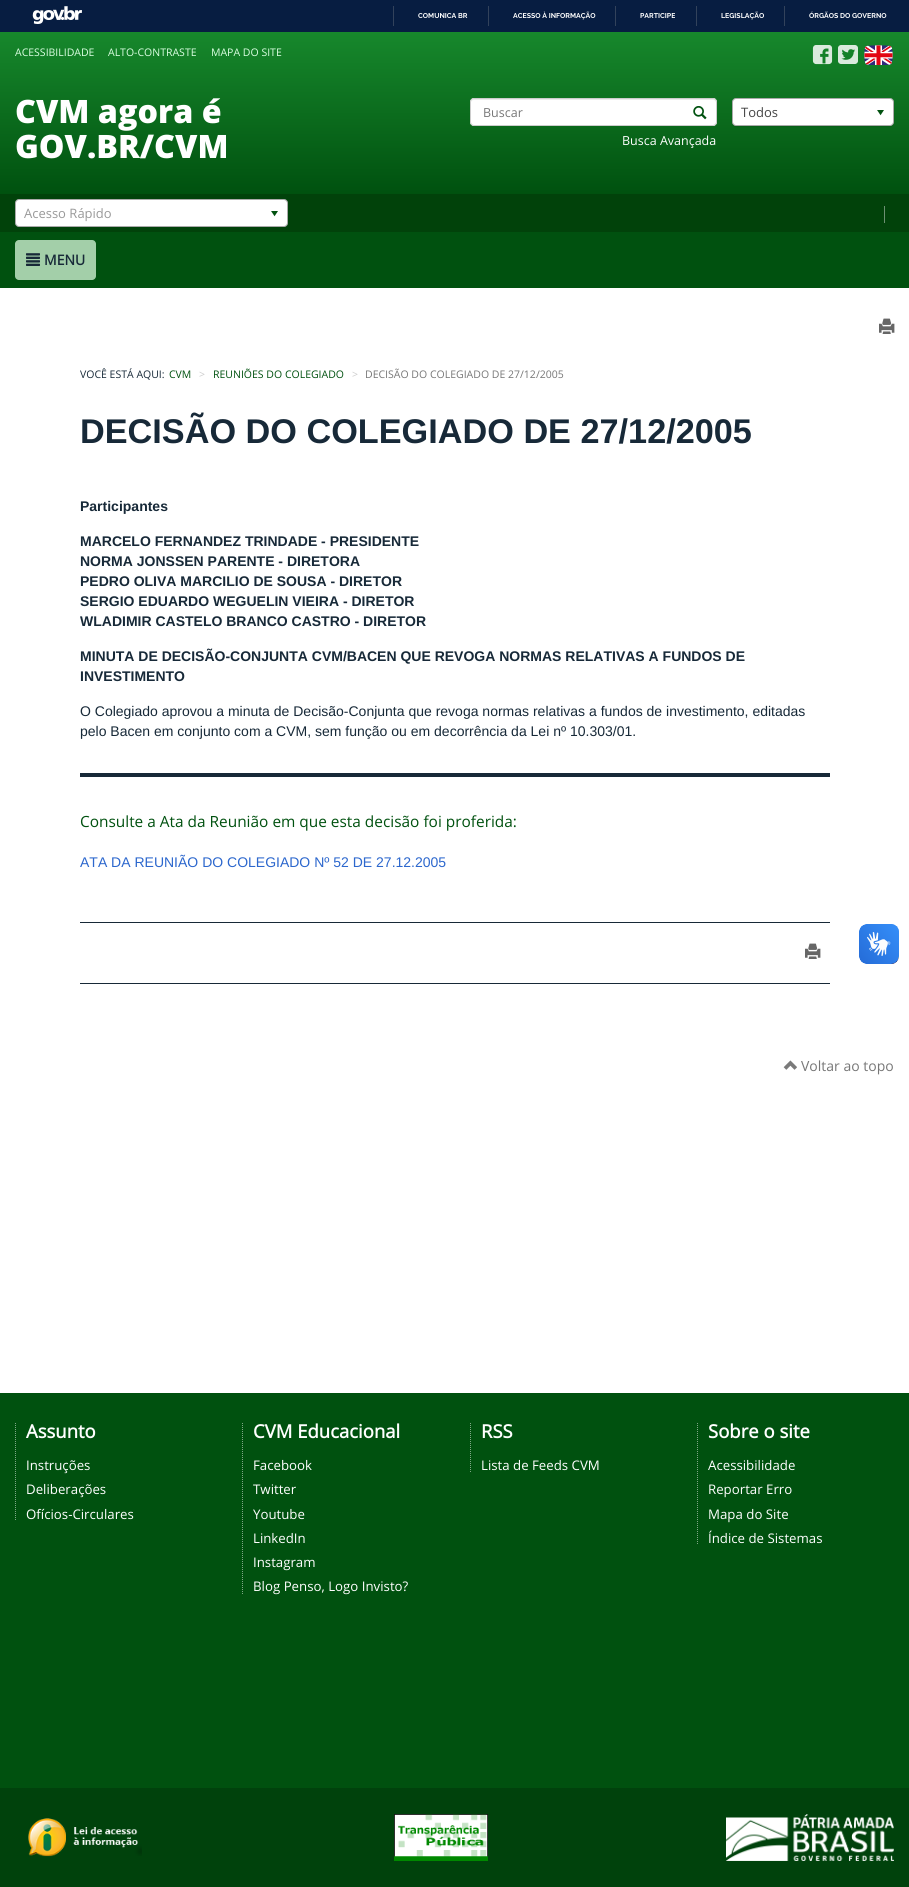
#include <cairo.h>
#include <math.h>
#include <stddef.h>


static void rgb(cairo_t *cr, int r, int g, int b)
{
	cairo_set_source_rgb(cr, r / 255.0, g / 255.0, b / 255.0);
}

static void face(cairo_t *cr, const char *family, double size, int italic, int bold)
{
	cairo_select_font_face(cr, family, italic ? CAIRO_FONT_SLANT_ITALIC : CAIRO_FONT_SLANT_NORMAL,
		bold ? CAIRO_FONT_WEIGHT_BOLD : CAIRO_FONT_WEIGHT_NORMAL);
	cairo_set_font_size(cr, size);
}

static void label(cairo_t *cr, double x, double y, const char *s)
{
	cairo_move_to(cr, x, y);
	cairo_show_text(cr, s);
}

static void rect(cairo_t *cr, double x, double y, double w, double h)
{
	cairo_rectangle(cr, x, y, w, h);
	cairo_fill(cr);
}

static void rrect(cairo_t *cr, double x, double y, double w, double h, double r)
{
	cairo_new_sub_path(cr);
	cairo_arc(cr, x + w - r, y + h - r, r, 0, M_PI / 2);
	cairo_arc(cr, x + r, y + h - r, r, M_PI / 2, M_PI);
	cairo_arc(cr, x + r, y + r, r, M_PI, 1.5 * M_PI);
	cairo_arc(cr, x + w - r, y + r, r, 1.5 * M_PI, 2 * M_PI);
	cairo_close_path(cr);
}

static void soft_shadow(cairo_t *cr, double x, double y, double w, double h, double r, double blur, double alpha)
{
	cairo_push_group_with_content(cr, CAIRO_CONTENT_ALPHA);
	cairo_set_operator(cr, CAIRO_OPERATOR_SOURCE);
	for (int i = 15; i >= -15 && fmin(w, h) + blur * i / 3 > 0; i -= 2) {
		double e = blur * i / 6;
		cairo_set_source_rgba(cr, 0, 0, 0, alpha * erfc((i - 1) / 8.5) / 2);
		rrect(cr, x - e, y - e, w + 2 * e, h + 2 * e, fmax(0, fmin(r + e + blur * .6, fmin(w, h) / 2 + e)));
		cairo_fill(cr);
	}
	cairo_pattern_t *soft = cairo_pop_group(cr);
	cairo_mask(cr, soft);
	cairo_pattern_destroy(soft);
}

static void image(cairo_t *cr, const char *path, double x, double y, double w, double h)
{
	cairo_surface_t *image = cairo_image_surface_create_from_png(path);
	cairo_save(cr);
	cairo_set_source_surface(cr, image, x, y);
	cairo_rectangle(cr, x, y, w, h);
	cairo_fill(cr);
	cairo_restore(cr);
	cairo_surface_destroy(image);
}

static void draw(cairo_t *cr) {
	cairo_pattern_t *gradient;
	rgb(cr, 255, 255, 255);
	cairo_paint(cr);
	rgb(cr, 7, 29, 65);
	rect(cr, 0, 0, 909, 32);
	image(cr, "image0.png", 32, 6, 50, 18);
	rgb(cr, 50, 66, 91);
	rect(cr, 393, 6, 1, 20);
	face(cr, "Raleway", 7, 0, 1);
	rgb(cr, 255, 255, 255);
	label(cr, 418, 18, "COMUNICA BR");
	rgb(cr, 50, 66, 91);
	rect(cr, 488, 6, 1, 20);
	rgb(cr, 255, 255, 255);
	label(cr, 513, 18, "ACESSO À INFORMAÇÃO");
	rgb(cr, 50, 66, 91);
	rect(cr, 615, 6, 1, 20);
	rgb(cr, 255, 255, 255);
	label(cr, 640, 18, "PARTICIPE");
	rgb(cr, 50, 66, 91);
	rect(cr, 696, 6, 1, 20);
	rgb(cr, 255, 255, 255);
	label(cr, 721, 18, "LEGISLAÇÃO");
	rgb(cr, 50, 66, 91);
	rect(cr, 784, 6, 1, 20);
	rgb(cr, 255, 255, 255);
	label(cr, 809, 18, "ÓRGÃOS DO GOVERNO");
	gradient = cairo_pattern_create_linear(455, 32, 455, 194);
	cairo_pattern_add_color_stop_rgba(gradient, 0, 0.09, 0.533, 0.173, 1);
	cairo_pattern_add_color_stop_rgba(gradient, 1, 0, 0.318, 0.059, 1);
	cairo_set_source(cr, gradient);
	cairo_pattern_destroy(gradient);
	rect(cr, 0, 32, 909, 162);
	face(cr, "Open Sans", 10.5, 0, 0);
	rgb(cr, 220, 255, 227);
	label(cr, 15, 56, "ACESSIBILIDADE");
	label(cr, 108, 56, "ALTO-CONTRASTE");
	label(cr, 211, 56, "MAPA DO SITE");
	image(cr, "image1.png", 812, 45, 21, 20);
	image(cr, "image2.png", 838, 45, 20, 19);
	image(cr, "image3.png", 864, 45, 29, 20);
	face(cr, "Open Sans ExtraBold", 32.25, 0, 0);
	rgb(cr, 255, 255, 255);
	label(cr, 15, 123, "CVM agora é");
	label(cr, 15, 158, "GOV.BR/CVM");
	rrect(cr, 470, 98, 247, 28, 4);
	cairo_fill(cr);
	rgb(cr, 236, 236, 236);
	cairo_new_path(cr);
	cairo_move_to(cr, 474, 100);
	cairo_line_to(cr, 714, 100);
	cairo_line_to(cr, 716, 101);
	cairo_line_to(cr, 716, 103);
	cairo_curve_to(cr, 716, 101, 715, 99, 713, 99);
	cairo_line_to(cr, 474, 99);
	cairo_curve_to(cr, 472, 99, 471, 101, 471, 103);
	cairo_curve_to(cr, 471, 101, 472, 100, 474, 100);
	cairo_close_path(cr);
	cairo_fill(cr);
	rrect(cr, 470.5, 98.5, 246, 27, 3.5);
	rgb(cr, 204, 204, 204);
	cairo_set_line_width(cr, 1);
	cairo_stroke(cr);
	face(cr, "Open Sans", 12.5, 0, 0);
	rgb(cr, 119, 119, 119);
	label(cr, 483, 117, "Buscar");
	image(cr, "image4.png", 693, 106, 14, 14);
	rgb(cr, 255, 255, 255);
	label(cr, 622, 145, "Busca Avançada");
	rgb(cr, 0, 0, 0);
	soft_shadow(cr, 732, 99, 162, 28, 4, 0.5, 0.1);
	rgb(cr, 255, 255, 255);
	rrect(cr, 732.5, 98.5, 161, 27, 3.5);
	cairo_fill_preserve(cr);
	rgb(cr, 170, 170, 170);
	cairo_stroke(cr);
	face(cr, "Open Sans", 13, 0, 0);
	rgb(cr, 68, 68, 68);
	label(cr, 741, 117, "Todos");
	image(cr, "image5.png", 877, 110, 7, 6);
	rgb(cr, 1, 66, 10);
	rect(cr, 0, 194, 909, 38);
	rgb(cr, 255, 255, 255);
	rrect(cr, 15.5, 199.5, 272, 27, 3.5);
	cairo_fill_preserve(cr);
	rgb(cr, 170, 170, 170);
	cairo_stroke(cr);
	rgb(cr, 153, 153, 153);
	label(cr, 24, 218, "Acesso Rápido");
	image(cr, "image5.png", 271, 211, 7, 6);
	rgb(cr, 108, 144, 114);
	rect(cr, 884, 206, 1, 17);
	rgb(cr, 0, 81, 15);
	rect(cr, 0, 232, 909, 56);
	rgb(cr, 163, 207, 169);
	rrect(cr, 15, 240, 81, 40, 4);
	cairo_fill(cr);
	image(cr, "image6.png", 26, 253, 14, 13);
	face(cr, "Open Sans", 14, 0, 1);
	rgb(cr, 23, 41, 56);
	label(cr, 44, 265, "MENU");
	image(cr, "image7.png", 879, 318, 16, 16);
	face(cr, "Open Sans", 10.5, 0, 0);
	label(cr, 80, 378, "VOCÊ ESTÁ AQUI:");
	rgb(cr, 0, 81, 15);
	label(cr, 169, 378, "CVM");
	rgb(cr, 204, 204, 204);
	label(cr, 199, 378, ">");
	rgb(cr, 0, 81, 15);
	label(cr, 213, 378, "REUNIÕES DO COLEGIADO");
	rgb(cr, 204, 204, 204);
	label(cr, 352, 378, ">");
	rgb(cr, 119, 119, 119);
	label(cr, 365, 378, "DECISÃO DO COLEGIADO DE 27/12/2005");
	face(cr, "Liberation Sans", 34.25, 0, 1);
	rgb(cr, 23, 41, 56);
	label(cr, 80, 443, "DECISÃO DO COLEGIADO DE 27/12/2005");
	face(cr, "Liberation Sans", 14, 0, 1);
	label(cr, 80, 511, "Participantes");
	label(cr, 80, 546, "MARCELO FERNANDEZ TRINDADE - PRESIDENTE");
	label(cr, 80, 566, "NORMA JONSSEN PARENTE - DIRETORA");
	label(cr, 80, 586, "PEDRO OLIVA MARCILIO DE SOUSA - DIRETOR");
	label(cr, 80, 606, "SERGIO EDUARDO WEGUELIN VIEIRA - DIRETOR");
	label(cr, 80, 626, "WLADIMIR CASTELO BRANCO CASTRO - DIRETOR");
	label(cr, 80, 661, "MINUTA DE DECISÃO-CONJUNTA CVM/BACEN QUE REVOGA NORMAS RELATIVAS A FUNDOS DE");
	label(cr, 80, 681, "INVESTIMENTO");
	face(cr, "Liberation Sans", 14, 0, 0);
	label(cr, 80, 716, "O Colegiado aprovou a minuta de Decisão-Conjunta que revoga normas relativas a fundos de investimento, editadas");
	label(cr, 80, 736, "pelo Bacen em conjunto com a CVM, sem função ou em decorrência da Lei nº 10.303/01.");
	rect(cr, 80, 773, 750, 4);
	face(cr, "Open Sans", 15.4, 0, 0);
	rgb(cr, 0, 81, 15);
	label(cr, 80, 827, "Consulte a Ata da Reunião em que esta decisão foi proferida:");
	face(cr, "Liberation Sans", 14, 0, 0);
	rgb(cr, 44, 103, 205);
	label(cr, 80, 867, "ATA DA REUNIÃO DO COLEGIADO Nº 52 DE 27.12.2005");
	rgb(cr, 23, 41, 55);
	rect(cr, 80, 922, 750, 1);
	rect(cr, 80, 983, 750, 1);
	image(cr, "image7.png", 805, 943, 16, 16);
	image(cr, "image8.png", 783, 1060, 14, 10);
	face(cr, "Open Sans", 14, 0, 0);
	rgb(cr, 119, 119, 119);
	label(cr, 801, 1071, "Voltar ao topo");
	image(cr, "image9.png", 859, 924, 40, 40);
	image(cr, "image10.png", 859, 924, 40, 40);
	rgb(cr, 0, 81, 15);
	rect(cr, 0, 1393, 909, 395);
	cairo_new_path(cr);
	cairo_move_to(cr, 15.5, 1423);
	cairo_line_to(cr, 15.5, 1521);
	rgb(cr, 128, 168, 135);
	cairo_set_dash(cr, (double[]){1, 1}, 2, 0);
	cairo_stroke(cr);
	face(cr, "Open Sans", 18.5, 0, 1);
	rgb(cr, 255, 255, 255);
	label(cr, 26, 1438, "Assunto");
	face(cr, "Open Sans", 13.25, 0, 0);
	label(cr, 26, 1470, "Instruções");
	label(cr, 26, 1494, "Deliberações");
	label(cr, 26, 1519, "Ofícios-Circulares");
	cairo_new_path(cr);
	cairo_move_to(cr, 242.5, 1423);
	cairo_line_to(cr, 242.5, 1594);
	rgb(cr, 128, 168, 135);
	cairo_stroke(cr);
	face(cr, "Open Sans", 18.5, 0, 1);
	rgb(cr, 255, 255, 255);
	label(cr, 253, 1438, "CVM Educacional");
	face(cr, "Open Sans", 13.25, 0, 0);
	label(cr, 253, 1470, "Facebook");
	label(cr, 253, 1494, "Twitter");
	label(cr, 253, 1519, "Youtube");
	label(cr, 253, 1543, "LinkedIn");
	label(cr, 253, 1567, "Instagram");
	label(cr, 253, 1591, "Blog Penso, Logo Invisto?");
	cairo_new_path(cr);
	cairo_move_to(cr, 470.5, 1423);
	cairo_line_to(cr, 470.5, 1472);
	rgb(cr, 128, 168, 135);
	cairo_stroke(cr);
	face(cr, "Open Sans", 18.5, 0, 1);
	rgb(cr, 255, 255, 255);
	label(cr, 481, 1438, "RSS");
	face(cr, "Open Sans", 13.25, 0, 0);
	label(cr, 481, 1470, "Lista de Feeds CVM");
	cairo_new_path(cr);
	cairo_move_to(cr, 697.5, 1423);
	cairo_line_to(cr, 697.5, 1545);
	rgb(cr, 128, 168, 135);
	cairo_stroke(cr);
	face(cr, "Open Sans", 18.5, 0, 1);
	rgb(cr, 255, 255, 255);
	label(cr, 708, 1438, "Sobre o site");
	face(cr, "Open Sans", 13.25, 0, 0);
	label(cr, 708, 1470, "Acessibilidade");
	label(cr, 708, 1494, "Reportar Erro");
	label(cr, 708, 1519, "Mapa do Site");
	label(cr, 708, 1543, "Índice de Sistemas");
	rgb(cr, 0, 66, 12);
	rect(cr, 0, 1788, 909, 99);
	image(cr, "image11.png", 28, 1818, 114, 39);
	image(cr, "image12.png", 394, 1814, 94, 47);
	image(cr, "image13.png", 726, 1814, 168, 47);
}

int main(void) {
	cairo_surface_t *surface = cairo_image_surface_create(CAIRO_FORMAT_RGB24, 909, 1887);
	cairo_t *cr = cairo_create(surface);
	cairo_font_options_t *options = cairo_font_options_create();
	cairo_font_options_set_hint_metrics(options, CAIRO_HINT_METRICS_OFF);
	cairo_font_options_set_hint_style(options, CAIRO_HINT_STYLE_NONE);
	cairo_set_font_options(cr, options);
	cairo_set_miter_limit(cr, 4);
	draw(cr);
	cairo_surface_write_to_png(surface, "render.png");
	cairo_font_options_destroy(options);
	cairo_destroy(cr);
	cairo_surface_destroy(surface);
	return 0;
}
